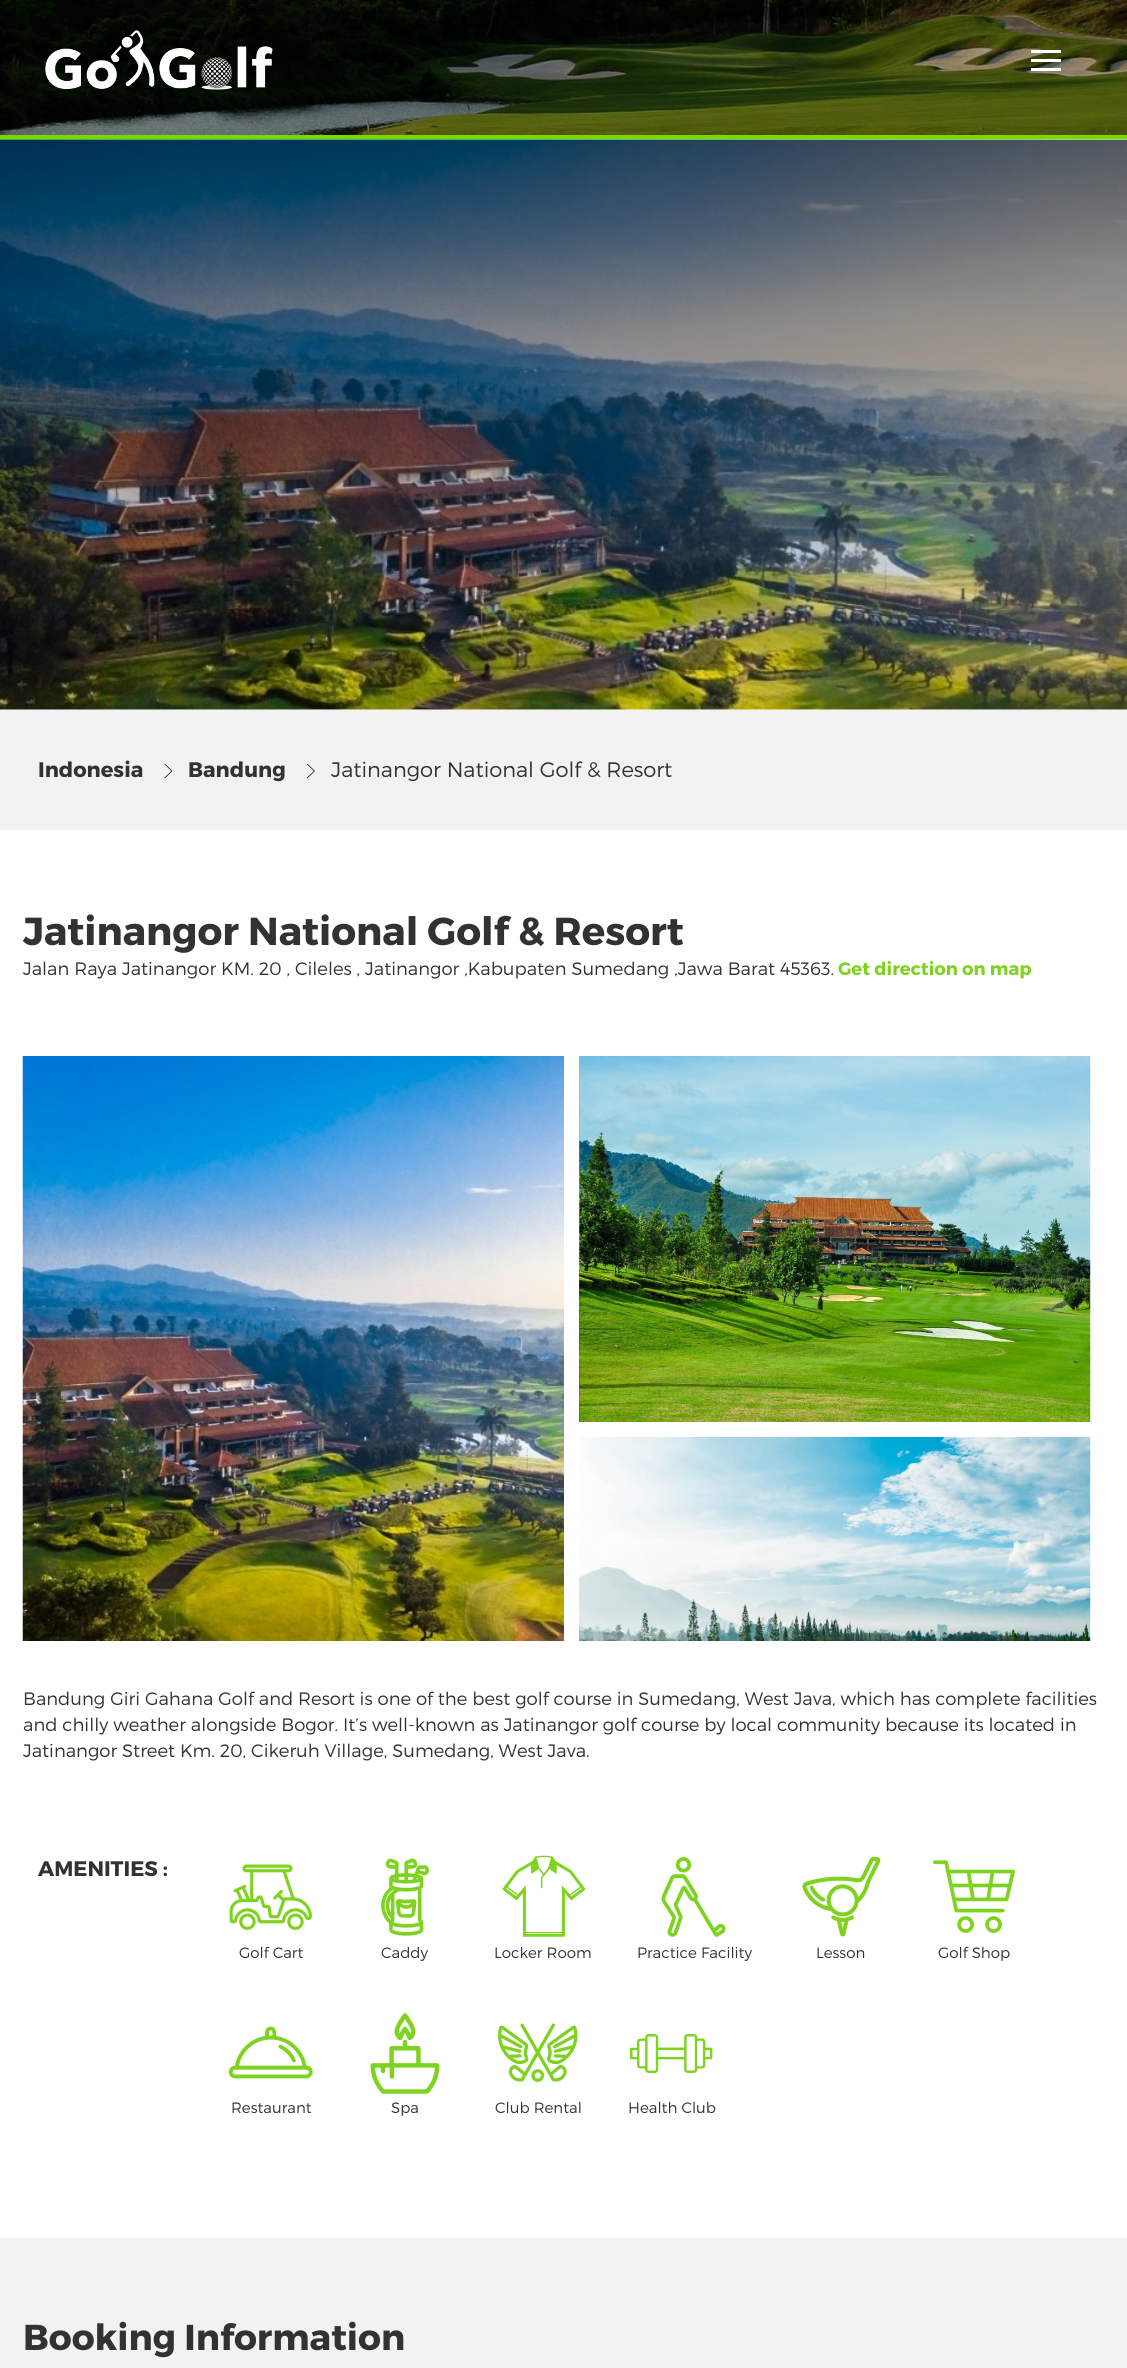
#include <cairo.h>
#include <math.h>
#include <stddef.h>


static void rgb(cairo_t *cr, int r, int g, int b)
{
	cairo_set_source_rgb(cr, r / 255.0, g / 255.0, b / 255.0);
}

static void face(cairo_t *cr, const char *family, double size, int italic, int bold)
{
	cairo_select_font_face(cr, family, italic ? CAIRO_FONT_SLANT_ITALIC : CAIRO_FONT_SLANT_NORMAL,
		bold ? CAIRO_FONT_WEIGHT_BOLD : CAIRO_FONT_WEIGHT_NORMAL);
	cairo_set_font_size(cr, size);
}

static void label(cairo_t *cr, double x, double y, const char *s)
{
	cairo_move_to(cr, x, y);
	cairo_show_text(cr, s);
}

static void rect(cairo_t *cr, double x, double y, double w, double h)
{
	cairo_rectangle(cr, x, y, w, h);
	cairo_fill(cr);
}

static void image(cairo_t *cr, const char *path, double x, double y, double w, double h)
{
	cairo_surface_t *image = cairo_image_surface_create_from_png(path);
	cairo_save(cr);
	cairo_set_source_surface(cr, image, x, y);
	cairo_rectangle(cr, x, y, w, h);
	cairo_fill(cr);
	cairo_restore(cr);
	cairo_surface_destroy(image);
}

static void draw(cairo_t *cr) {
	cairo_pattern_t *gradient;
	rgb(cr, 255, 255, 255);
	cairo_paint(cr);
	image(cr, "image0.png", 0, 0, 1127, 135);
	rgb(cr, 124, 214, 0);
	rect(cr, 0, 135, 1127, 5);
	image(cr, "image1.png", 45, 30, 228, 60);
	rgb(cr, 255, 255, 255);
	rect(cr, 1031, 59, 30, 3);
	rect(cr, 1031, 50, 30, 3);
	rect(cr, 1031, 68, 30, 3);
	image(cr, "image2.png", 0, 139, 1127, 571);
	gradient = cairo_pattern_create_linear(564, 710, 564, 140);
	cairo_pattern_add_color_stop_rgba(gradient, 0, 0, 0, 0, 0);
	cairo_pattern_add_color_stop_rgba(gradient, 1, 0, 0, 0, 0.6);
	cairo_set_source(cr, gradient);
	cairo_pattern_destroy(gradient);
	rect(cr, 0, 140, 1127, 550);
	rgb(cr, 242, 242, 242);
	rect(cr, 0, 710, 1127, 120);
	face(cr, "Montserrat", 21, 0, 1);
	rgb(cr, 50, 50, 50);
	label(cr, 38, 777, "Indonesia");
	image(cr, "image3.png", 164, 764, 9, 15);
	label(cr, 188, 777, "Bandung");
	image(cr, "image4.png", 307, 764, 8, 15);
	face(cr, "Montserrat Light", 21, 0, 0);
	label(cr, 331, 777, "Jatinangor National Golf & Resort");
	face(cr, "Montserrat", 39, 0, 1);
	label(cr, 23, 945, "Jatinangor National Golf & Resort");
	face(cr, "Montserrat Light", 18, 0, 0);
	label(cr, 23, 975, "Jalan Raya Jatinangor KM. 20 , Cileles , Jatinangor ,Kabupaten Sumedang ,Jawa Barat 45363.");
	face(cr, "Montserrat", 18, 0, 1);
	rgb(cr, 126, 211, 33);
	label(cr, 838, 975, "Get direction on map");
	image(cr, "image5.png", 22, 1056, 542, 585);
	image(cr, "image6.png", 579, 1056, 512, 366);
	image(cr, "image7.png", 579, 1437, 512, 204);
	face(cr, "Montserrat Light", 18, 0, 0);
	rgb(cr, 50, 50, 50);
	label(cr, 23, 1705, "Bandung Giri Gahana Golf and Resort is one of the best golf course in Sumedang, West Java, which has complete facilities");
	label(cr, 23, 1731, "and chilly weather alongside Bogor. It’s well-known as Jatinangor golf course by local community because its located in");
	label(cr, 23, 1757, "Jatinangor Street Km. 20, Cikeruh Village, Sumedang, West Java.");
	face(cr, "Montserrat", 21, 0, 1);
	label(cr, 38, 1876, "AMENITIES :");
	image(cr, "image8.png", 229, 1864, 83, 66);
	face(cr, "Montserrat Light", 15, 0, 0);
	label(cr, 239, 1958, "Golf Cart");
	image(cr, "image9.png", 381, 1858, 48, 78);
	label(cr, 381, 1958, "Caddy");
	image(cr, "image10.png", 502, 1855, 84, 82);
	label(cr, 494, 1958, "Locker Room");
	image(cr, "image11.png", 661, 1857, 65, 80);
	label(cr, 637, 1958, "Practice Facility");
	image(cr, "image12.png", 802, 1857, 79, 80);
	label(cr, 816, 1958, "Lesson");
	image(cr, "image13.png", 933, 1860, 82, 73);
	label(cr, 938, 1958, "Golf Shop");
	image(cr, "image14.png", 228, 2026, 85, 53);
	label(cr, 231, 2113, "Restaurant");
	image(cr, "image15.png", 370, 2013, 70, 81);
	label(cr, 391, 2113, "Spa");
	image(cr, "image16.png", 498, 2023, 80, 59);
	label(cr, 495, 2113, "Club Rental");
	image(cr, "image17.png", 630, 2034, 83, 39);
	label(cr, 628, 2113, "Health Club");
	rgb(cr, 242, 242, 242);
	rect(cr, 0, 2238, 1127, 130);
	face(cr, "Montserrat", 36, 0, 1);
	rgb(cr, 50, 50, 50);
	label(cr, 23, 2350, "Booking Information");
}

int main(void) {
	cairo_surface_t *surface = cairo_image_surface_create(CAIRO_FORMAT_RGB24, 1127, 2368);
	cairo_t *cr = cairo_create(surface);
	cairo_font_options_t *options = cairo_font_options_create();
	cairo_font_options_set_hint_metrics(options, CAIRO_HINT_METRICS_OFF);
	cairo_font_options_set_hint_style(options, CAIRO_HINT_STYLE_NONE);
	cairo_set_font_options(cr, options);
	cairo_set_miter_limit(cr, 4);
	draw(cr);
	cairo_surface_write_to_png(surface, "render.png");
	cairo_font_options_destroy(options);
	cairo_destroy(cr);
	cairo_surface_destroy(surface);
	return 0;
}
